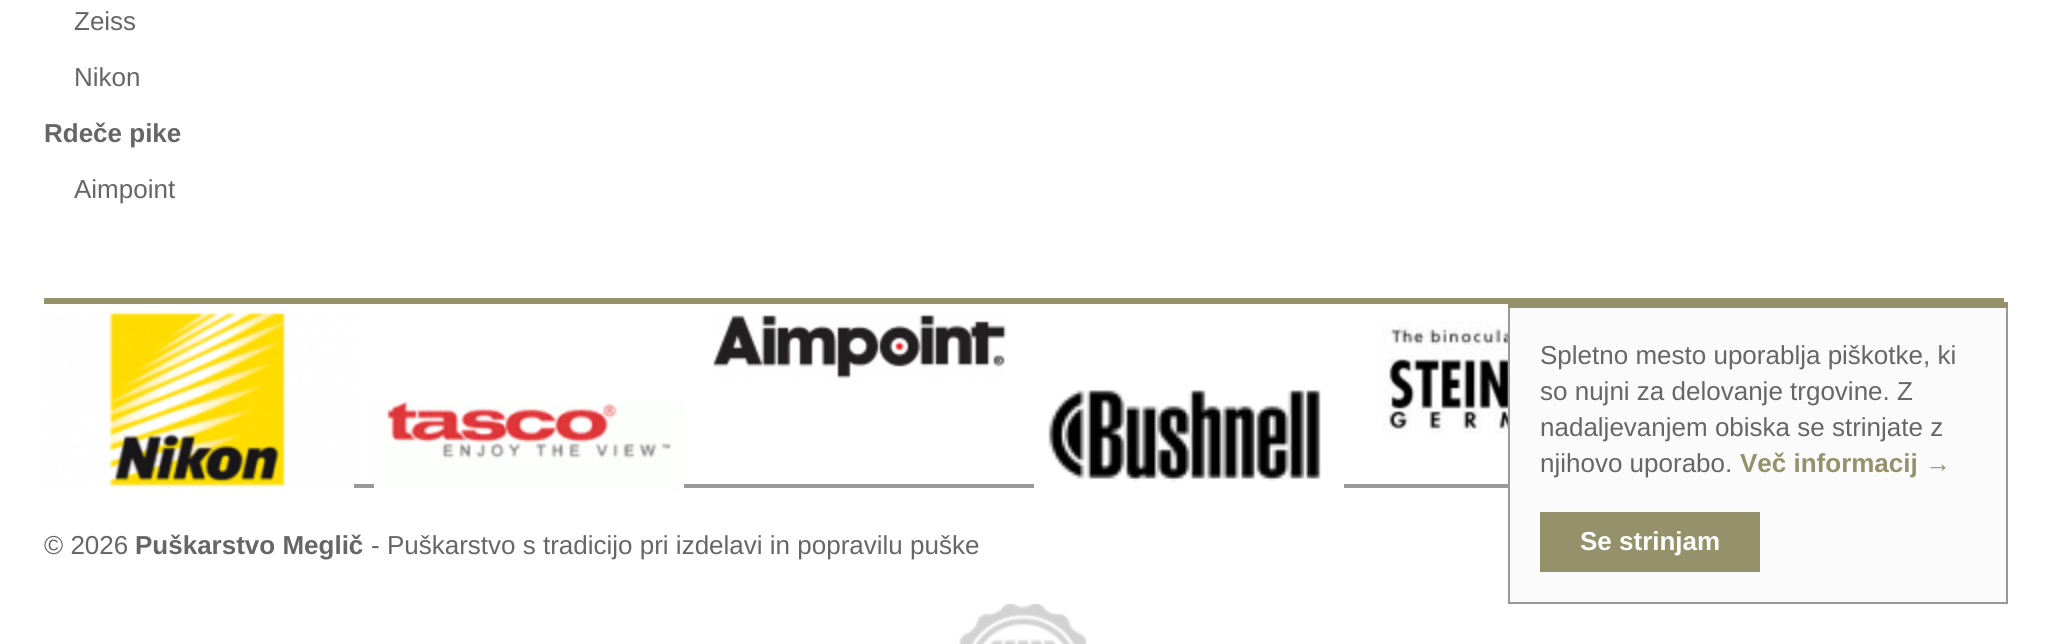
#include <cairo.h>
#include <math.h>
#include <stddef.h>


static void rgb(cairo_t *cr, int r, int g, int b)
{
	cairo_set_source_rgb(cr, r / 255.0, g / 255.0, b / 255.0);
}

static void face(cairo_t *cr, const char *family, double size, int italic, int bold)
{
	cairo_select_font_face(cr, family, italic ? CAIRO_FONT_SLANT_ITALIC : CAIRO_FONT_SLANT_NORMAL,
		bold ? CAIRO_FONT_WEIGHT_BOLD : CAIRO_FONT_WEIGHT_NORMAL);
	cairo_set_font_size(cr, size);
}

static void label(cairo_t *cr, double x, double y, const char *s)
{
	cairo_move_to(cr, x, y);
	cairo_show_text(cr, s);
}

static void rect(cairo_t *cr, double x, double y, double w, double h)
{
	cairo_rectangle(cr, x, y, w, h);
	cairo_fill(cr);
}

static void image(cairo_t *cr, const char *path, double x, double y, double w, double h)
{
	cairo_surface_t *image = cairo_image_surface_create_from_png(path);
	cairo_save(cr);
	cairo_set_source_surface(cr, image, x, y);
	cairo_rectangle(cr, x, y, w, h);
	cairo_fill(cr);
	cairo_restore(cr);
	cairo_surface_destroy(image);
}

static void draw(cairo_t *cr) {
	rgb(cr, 255, 255, 255);
	cairo_paint(cr);
	face(cr, "Liberation Sans", 26, 0, 0);
	rgb(cr, 102, 102, 102);
	label(cr, 74, 30, "Zeiss");
	label(cr, 74, 86, "Nikon");
	face(cr, "Liberation Sans", 26, 0, 1);
	label(cr, 44, 142, "Rdeče pike");
	face(cr, "Liberation Sans", 26, 0, 0);
	label(cr, 74, 198, "Aimpoint");
	rgb(cr, 148, 145, 107);
	rect(cr, 44, 298, 1960, 6);
	rgb(cr, 153, 153, 153);
	rect(cr, 354, 484, 1154, 4);
	image(cr, "image0.png", 44, 311, 310, 177);
	image(cr, "image1.png", 374, 401, 310, 87);
	image(cr, "image2.png", 712, 313, 295, 66);
	image(cr, "image3.png", 1034, 390, 310, 98);
	image(cr, "image4.png", 1382, 321, 126, 112);
	rgb(cr, 102, 102, 102);
	label(cr, 44, 554, "© 2026");
	face(cr, "Liberation Sans", 26, 0, 1);
	label(cr, 135, 554, "Puškarstvo Meglič");
	face(cr, "Liberation Sans", 26, 0, 0);
	label(cr, 371, 554, "- Puškarstvo s tradicijo pri izdelavi in popravilu puške");
	image(cr, "image5.png", 959, 604, 128, 40);
	rgb(cr, 251, 251, 251);
	rect(cr, 1510, 308, 496, 294);
	rgb(cr, 148, 145, 107);
	rect(cr, 1508, 302, 500, 6);
	rgb(cr, 153, 153, 153);
	rect(cr, 2006, 308, 2, 296);
	rect(cr, 1508, 602, 500, 2);
	rect(cr, 1508, 308, 2, 296);
	rgb(cr, 102, 102, 102);
	label(cr, 1540, 364, "Spletno mesto uporablja piškotke, ki");
	label(cr, 1540, 400, "so nujni za delovanje trgovine. Z");
	label(cr, 1540, 436, "nadaljevanjem obiska se strinjate z");
	label(cr, 1540, 472, "njihovo uporabo.");
	face(cr, "Liberation Sans", 26, 0, 1);
	rgb(cr, 148, 145, 107);
	label(cr, 1740, 472, "Več informacij →");
	rect(cr, 1540, 512, 220, 60);
	rgb(cr, 255, 255, 255);
	label(cr, 1580, 550, "Se strinjam");
}

int main(void) {
	cairo_surface_t *surface = cairo_image_surface_create(CAIRO_FORMAT_RGB24, 2047, 644);
	cairo_t *cr = cairo_create(surface);
	cairo_font_options_t *options = cairo_font_options_create();
	cairo_font_options_set_hint_metrics(options, CAIRO_HINT_METRICS_OFF);
	cairo_font_options_set_hint_style(options, CAIRO_HINT_STYLE_NONE);
	cairo_set_font_options(cr, options);
	cairo_set_miter_limit(cr, 4);
	draw(cr);
	cairo_surface_write_to_png(surface, "render.png");
	cairo_font_options_destroy(options);
	cairo_destroy(cr);
	cairo_surface_destroy(surface);
	return 0;
}
